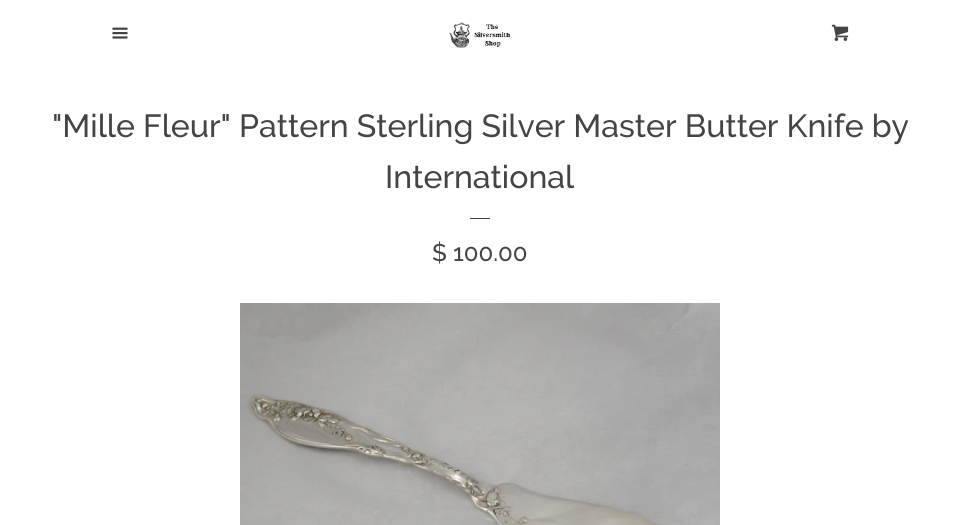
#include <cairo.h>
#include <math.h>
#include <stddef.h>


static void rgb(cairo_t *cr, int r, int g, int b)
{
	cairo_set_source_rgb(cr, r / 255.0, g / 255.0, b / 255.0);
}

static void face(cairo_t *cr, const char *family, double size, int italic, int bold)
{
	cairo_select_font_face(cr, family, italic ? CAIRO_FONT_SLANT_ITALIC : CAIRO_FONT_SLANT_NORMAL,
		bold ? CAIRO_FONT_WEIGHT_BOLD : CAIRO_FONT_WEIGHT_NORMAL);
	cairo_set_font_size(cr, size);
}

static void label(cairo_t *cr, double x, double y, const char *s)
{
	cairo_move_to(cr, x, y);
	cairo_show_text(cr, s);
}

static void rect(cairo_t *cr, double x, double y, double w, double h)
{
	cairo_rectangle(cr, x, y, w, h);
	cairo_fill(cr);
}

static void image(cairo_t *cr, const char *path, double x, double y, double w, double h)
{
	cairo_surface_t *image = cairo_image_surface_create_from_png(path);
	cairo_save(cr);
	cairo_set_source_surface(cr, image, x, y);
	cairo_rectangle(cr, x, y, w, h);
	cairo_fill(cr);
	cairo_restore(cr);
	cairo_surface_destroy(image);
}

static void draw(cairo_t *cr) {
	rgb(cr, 255, 255, 255);
	cairo_paint(cr);
	image(cr, "image0.png", 112, 27, 16, 12);
	image(cr, "image1.png", 449, 22, 62, 26);
	image(cr, "image2.png", 831, 24, 18, 17);
	face(cr, "Raleway Medium", 32, 0, 0);
	rgb(cr, 68, 68, 68);
	label(cr, 52, 137, "\"Mille Fleur\" Pattern Sterling Silver Master Butter Knife by");
	label(cr, 385, 188, "International");
	rect(cr, 470, 218, 20, 1);
	face(cr, "Raleway Medium", 24, 0, 0);
	label(cr, 432, 261, "$ 100.00");
	image(cr, "image3.png", 240, 303, 480, 222);
}

int main(void) {
	cairo_surface_t *surface = cairo_image_surface_create(CAIRO_FORMAT_RGB24, 960, 525);
	cairo_t *cr = cairo_create(surface);
	cairo_font_options_t *options = cairo_font_options_create();
	cairo_font_options_set_hint_metrics(options, CAIRO_HINT_METRICS_OFF);
	cairo_font_options_set_hint_style(options, CAIRO_HINT_STYLE_NONE);
	cairo_set_font_options(cr, options);
	cairo_set_miter_limit(cr, 4);
	draw(cr);
	cairo_surface_write_to_png(surface, "render.png");
	cairo_font_options_destroy(options);
	cairo_destroy(cr);
	cairo_surface_destroy(surface);
	return 0;
}
